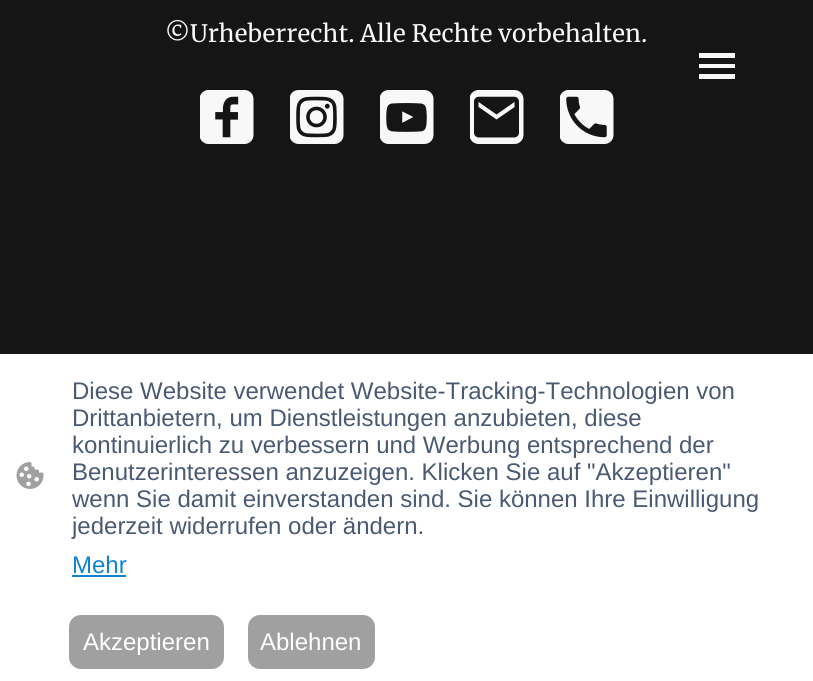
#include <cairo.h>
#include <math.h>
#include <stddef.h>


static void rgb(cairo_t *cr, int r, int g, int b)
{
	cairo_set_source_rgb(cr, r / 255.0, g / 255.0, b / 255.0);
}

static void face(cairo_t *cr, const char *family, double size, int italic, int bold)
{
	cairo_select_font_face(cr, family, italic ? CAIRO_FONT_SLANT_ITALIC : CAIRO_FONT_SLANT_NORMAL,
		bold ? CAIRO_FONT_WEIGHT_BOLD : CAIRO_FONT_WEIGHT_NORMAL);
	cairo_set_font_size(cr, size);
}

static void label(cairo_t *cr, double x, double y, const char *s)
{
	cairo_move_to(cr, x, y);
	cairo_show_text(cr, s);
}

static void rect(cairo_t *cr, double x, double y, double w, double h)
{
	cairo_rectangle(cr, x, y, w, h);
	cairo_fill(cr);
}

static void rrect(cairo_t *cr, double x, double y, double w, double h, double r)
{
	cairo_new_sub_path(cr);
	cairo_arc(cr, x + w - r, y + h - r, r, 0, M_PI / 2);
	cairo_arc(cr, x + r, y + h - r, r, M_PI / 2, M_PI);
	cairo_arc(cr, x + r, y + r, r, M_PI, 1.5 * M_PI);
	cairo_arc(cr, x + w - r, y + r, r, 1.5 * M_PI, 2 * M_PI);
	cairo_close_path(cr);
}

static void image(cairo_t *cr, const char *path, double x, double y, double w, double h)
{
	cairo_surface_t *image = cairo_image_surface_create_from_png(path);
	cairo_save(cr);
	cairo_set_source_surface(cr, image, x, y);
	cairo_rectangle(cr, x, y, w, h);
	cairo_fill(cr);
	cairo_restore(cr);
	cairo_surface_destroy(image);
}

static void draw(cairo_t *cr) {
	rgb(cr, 255, 255, 255);
	cairo_paint(cr);
	rgb(cr, 21, 21, 21);
	rect(cr, 0, 0, 813, 354);
	face(cr, "Merriweather", 24, 0, 0);
	rgb(cr, 248, 248, 248);
	label(cr, 165, 42, "©Urheberrecht. Alle Rechte vorbehalten.");
	rect(cr, 699, 53, 36, 5);
	rect(cr, 699, 64, 36, 4);
	rect(cr, 699, 74, 36, 5);
	image(cr, "image0.png", 200, 90, 54, 54);
	image(cr, "image1.png", 290, 90, 54, 54);
	image(cr, "image2.png", 380, 90, 54, 54);
	image(cr, "image3.png", 470, 90, 54, 54);
	image(cr, "image4.png", 560, 90, 54, 54);
	image(cr, "image5.png", 16, 462, 28, 27);
	face(cr, "Liberation Sans", 24, 0, 0);
	rgb(cr, 74, 90, 115);
	label(cr, 72, 399, "Diese Website verwendet Website-Tracking-Technologien von");
	label(cr, 72, 426, "Drittanbietern, um Dienstleistungen anzubieten, diese");
	label(cr, 72, 453, "kontinuierlich zu verbessern und Werbung entsprechend der");
	label(cr, 72, 480, "Benutzerinteressen anzuzeigen. Klicken Sie auf \"Akzeptieren\"");
	label(cr, 72, 507, "wenn Sie damit einverstanden sind. Sie können Ihre Einwilligung");
	label(cr, 72, 534, "jederzeit widerrufen oder ändern.");
	rgb(cr, 17, 131, 209);
	label(cr, 72, 573, "Mehr");
	rect(cr, 72, 575, 54, 2);
	rgb(cr, 160, 160, 160);
	rrect(cr, 70, 616, 153, 52, 11);
	cairo_fill_preserve(cr);
	cairo_stroke(cr);
	rgb(cr, 255, 255, 255);
	label(cr, 83, 650, "Akzeptieren");
	rgb(cr, 160, 160, 160);
	rrect(cr, 249, 616, 125, 52, 11);
	cairo_fill_preserve(cr);
	cairo_stroke(cr);
	rgb(cr, 255, 255, 255);
	label(cr, 260, 650, "Ablehnen");
}

int main(void) {
	cairo_surface_t *surface = cairo_image_surface_create(CAIRO_FORMAT_RGB24, 813, 681);
	cairo_t *cr = cairo_create(surface);
	cairo_font_options_t *options = cairo_font_options_create();
	cairo_font_options_set_hint_metrics(options, CAIRO_HINT_METRICS_OFF);
	cairo_font_options_set_hint_style(options, CAIRO_HINT_STYLE_NONE);
	cairo_set_font_options(cr, options);
	cairo_set_miter_limit(cr, 4);
	draw(cr);
	cairo_surface_write_to_png(surface, "render.png");
	cairo_font_options_destroy(options);
	cairo_destroy(cr);
	cairo_surface_destroy(surface);
	return 0;
}
